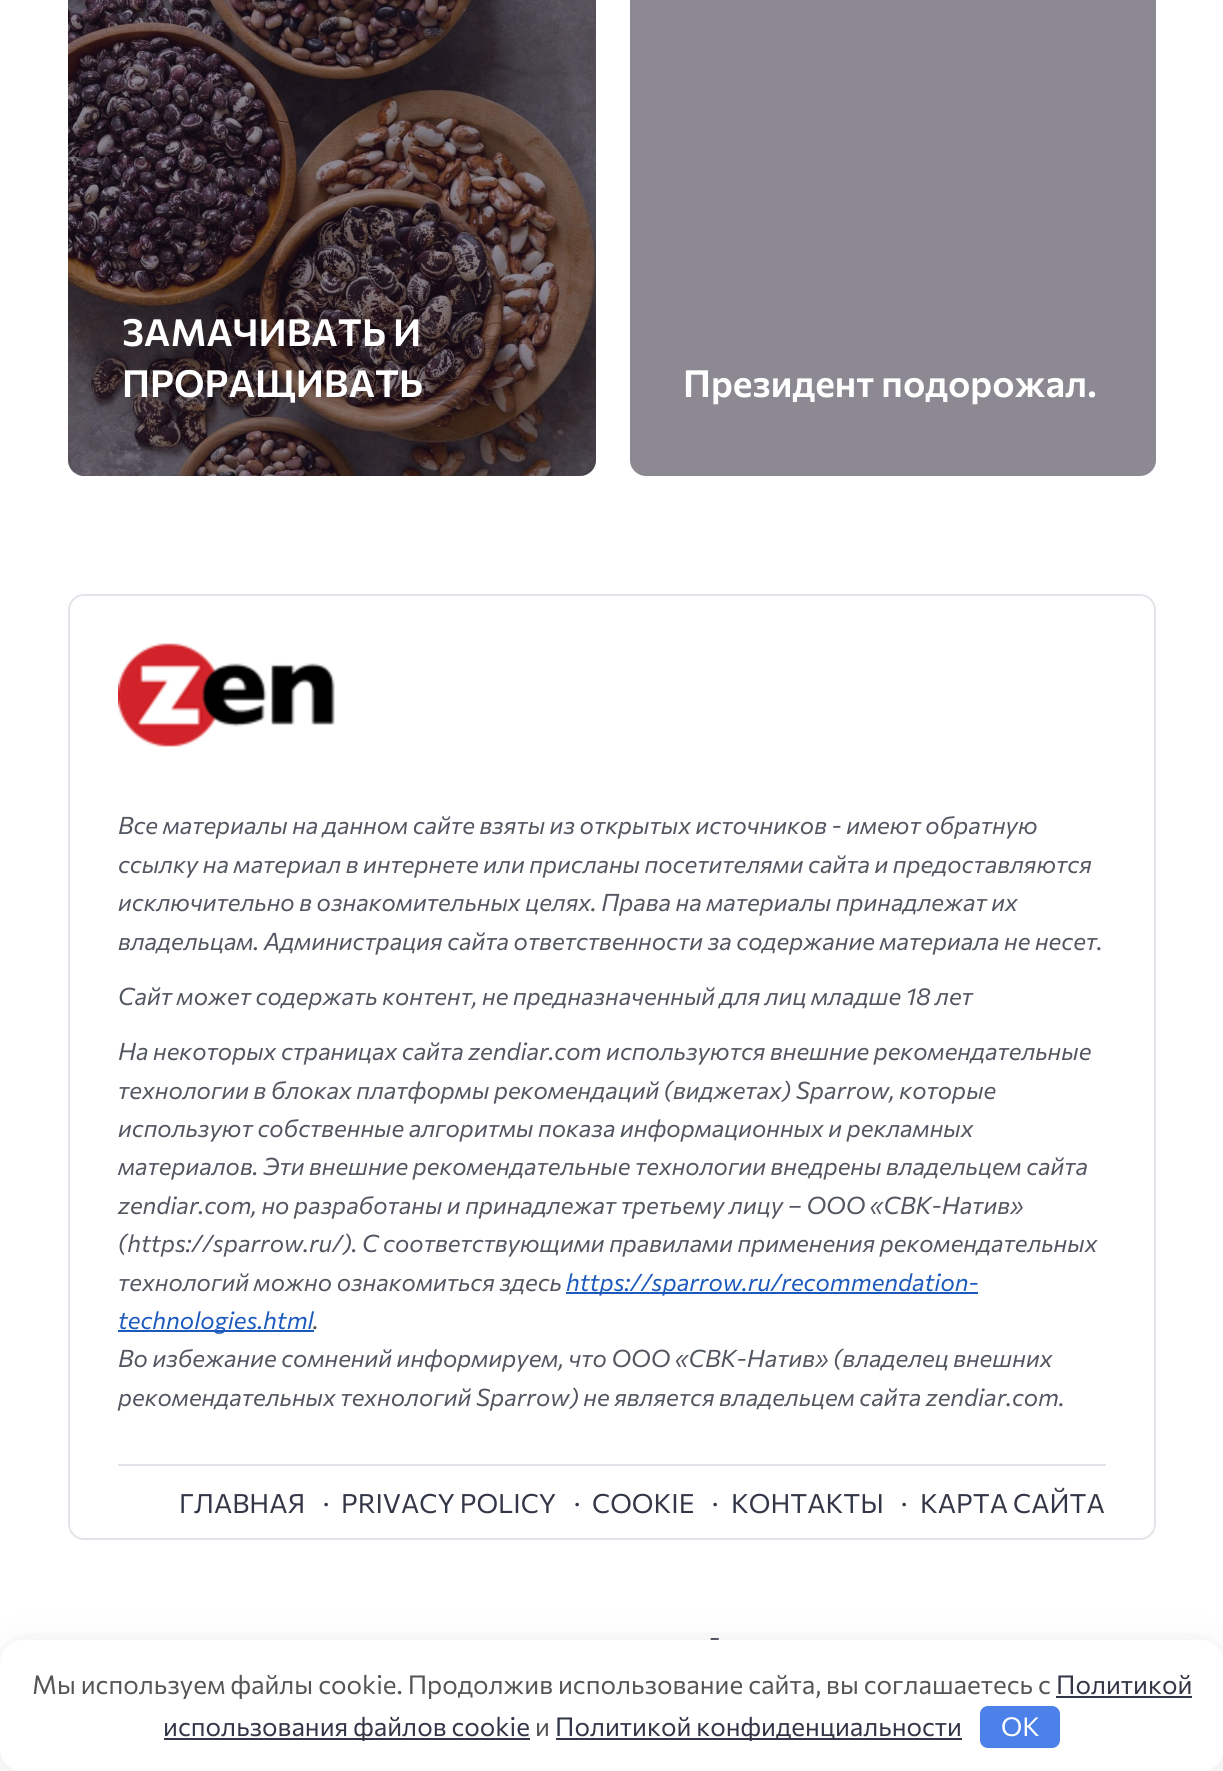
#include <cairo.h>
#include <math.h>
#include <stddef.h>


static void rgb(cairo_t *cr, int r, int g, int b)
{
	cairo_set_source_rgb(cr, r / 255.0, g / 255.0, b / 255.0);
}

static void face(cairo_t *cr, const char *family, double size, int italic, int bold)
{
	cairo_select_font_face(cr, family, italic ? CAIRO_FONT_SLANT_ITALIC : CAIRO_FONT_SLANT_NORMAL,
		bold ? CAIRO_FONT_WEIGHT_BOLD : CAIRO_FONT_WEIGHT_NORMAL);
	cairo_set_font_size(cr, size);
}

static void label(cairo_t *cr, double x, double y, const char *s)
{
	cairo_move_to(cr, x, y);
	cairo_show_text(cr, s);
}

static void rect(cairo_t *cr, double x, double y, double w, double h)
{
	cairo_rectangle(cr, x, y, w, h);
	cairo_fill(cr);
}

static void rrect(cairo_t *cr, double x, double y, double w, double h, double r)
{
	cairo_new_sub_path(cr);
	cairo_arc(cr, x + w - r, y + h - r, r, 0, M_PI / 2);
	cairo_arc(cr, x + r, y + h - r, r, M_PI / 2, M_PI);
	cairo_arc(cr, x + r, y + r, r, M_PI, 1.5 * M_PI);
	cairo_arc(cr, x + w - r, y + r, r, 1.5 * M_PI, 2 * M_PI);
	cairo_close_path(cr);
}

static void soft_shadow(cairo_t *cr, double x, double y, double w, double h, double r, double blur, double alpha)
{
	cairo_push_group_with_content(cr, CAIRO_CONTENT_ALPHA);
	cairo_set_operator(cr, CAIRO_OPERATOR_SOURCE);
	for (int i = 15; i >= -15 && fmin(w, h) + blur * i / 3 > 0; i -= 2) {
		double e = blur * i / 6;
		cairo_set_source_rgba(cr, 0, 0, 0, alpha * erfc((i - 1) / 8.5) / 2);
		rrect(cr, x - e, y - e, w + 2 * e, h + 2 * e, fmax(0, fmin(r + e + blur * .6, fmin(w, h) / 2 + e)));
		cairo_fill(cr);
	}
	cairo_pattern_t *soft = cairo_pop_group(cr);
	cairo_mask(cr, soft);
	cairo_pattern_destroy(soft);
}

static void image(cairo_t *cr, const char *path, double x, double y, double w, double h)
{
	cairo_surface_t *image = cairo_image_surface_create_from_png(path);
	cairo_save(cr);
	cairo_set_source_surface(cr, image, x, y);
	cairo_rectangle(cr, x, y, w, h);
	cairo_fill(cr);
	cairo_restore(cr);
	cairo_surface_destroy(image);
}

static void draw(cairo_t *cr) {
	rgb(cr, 255, 255, 255);
	cairo_paint(cr);
	image(cr, "image0.png", 68, 0, 528, 476);
	cairo_set_source_rgba(cr, 0.102, 0.071, 0.153, 0.5);
	rrect(cr, 68, -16, 528, 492, 16);
	cairo_fill(cr);
	face(cr, "Commissioner SemiBold", 37.4, 0, 0);
	rgb(cr, 255, 255, 255);
	label(cr, 122, 346, "ЗАМАЧИВАТЬ И");
	label(cr, 122, 397, "ПРОРАЩИВАТЬ");
	rgb(cr, 141, 137, 147);
	rrect(cr, 630, -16, 526, 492, 16);
	cairo_fill(cr);
	rgb(cr, 255, 255, 255);
	label(cr, 683, 397, "Президент подорожал.");
	rrect(cr, 69, 595, 1086, 944, 15);
	rgb(cr, 227, 228, 234);
	cairo_stroke(cr);
	image(cr, "image1.png", 118, 643, 217, 104);
	face(cr, "Commissioner", 24, 1, 0);
	rgb(cr, 82, 86, 97);
	label(cr, 118, 834, "Все материалы на данном сайте взяты из открытых источников - имеют обратную");
	label(cr, 118, 873, "ссылку на материал в интернете или присланы посетителями сайта и предоставляются");
	label(cr, 118, 911, "исключительно в ознакомительных целях. Права на материалы принадлежат их");
	label(cr, 118, 950, "владельцам. Администрация сайта ответственности за содержание материала не несет.");
	label(cr, 118, 1005, "Сайт может содержать контент, не предназначенный для лиц младше 18 лет");
	label(cr, 118, 1060, "На некоторых страницах сайта zendiar.com используются внешние рекомендательные");
	label(cr, 118, 1099, "технологии в блоках платформы рекомендаций (виджетах) Sparrow, которые");
	label(cr, 118, 1137, "используют собственные алгоритмы показа информационных и рекламных");
	label(cr, 118, 1175, "материалов. Эти внешние рекомендательные технологии внедрены владельцем сайта");
	label(cr, 118, 1214, "zendiar.com, но разработаны и принадлежат третьему лицу – ООО «СВК-Натив»");
	label(cr, 118, 1252, "(https://sparrow.ru/). С соответствующими правилами применения рекомендательных");
	label(cr, 118, 1291, "технологий можно ознакомиться здесь");
	rgb(cr, 28, 89, 188);
	rect(cr, 566, 1292, 412, 2);
	label(cr, 566, 1291, "https://sparrow.ru/recommendation-");
	rect(cr, 118, 1330, 196, 2);
	label(cr, 118, 1329, "technologies.html");
	rgb(cr, 82, 86, 97);
	label(cr, 313, 1329, ".");
	label(cr, 118, 1367, "Во избежание сомнений информируем, что ООО «СВК-Натив» (владелец внешних");
	label(cr, 118, 1406, "рекомендательных технологий Sparrow) не является владельцем сайта zendiar.com.");
	rgb(cr, 227, 228, 234);
	rect(cr, 118, 1464, 988, 2);
	face(cr, "Commissioner", 26.5, 0, 0);
	rgb(cr, 51, 54, 70);
	label(cr, 179, 1513, "ГЛАВНАЯ");
	label(cr, 323, 1513, "·");
	label(cr, 341, 1513, "PRIVACY POLICY");
	label(cr, 574, 1513, "·");
	label(cr, 592, 1513, "COOKIE");
	label(cr, 712, 1513, "·");
	label(cr, 731, 1513, "КОНТАКТЫ");
	label(cr, 901, 1513, "·");
	label(cr, 920, 1513, "КАРТА САЙТА");
	face(cr, "Commissioner", 27, 0, 0);
	rgb(cr, 82, 86, 97);
	label(cr, 709, 1647, "-");
	rgb(cr, 41, 44, 56);
	soft_shadow(cr, 10, 1656, 1204, 112, 14, 20, 0.2);
	rgb(cr, 255, 255, 255);
	rrect(cr, 0, 1640, 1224, 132, 24);
	cairo_fill(cr);
	face(cr, "Commissioner", 26, 0, 0);
	rgb(cr, 85, 85, 85);
	label(cr, 32, 1694, "Мы используем файлы cookie. Продолжив использование сайта, вы соглашаетесь с");
	rgb(cr, 51, 54, 70);
	label(cr, 1056, 1694, "Политикой");
	rect(cr, 1056, 1696, 136, 2);
	rect(cr, 164, 1738, 366, 2);
	label(cr, 163, 1736, "использования файлов cookie");
	rgb(cr, 85, 85, 85);
	label(cr, 535, 1736, "и");
	rgb(cr, 51, 54, 70);
	rect(cr, 556, 1738, 406, 2);
	label(cr, 555, 1736, "Политикой конфиденциальности");
	rgb(cr, 75, 129, 232);
	rrect(cr, 980, 1706, 80, 42, 8);
	cairo_fill(cr);
	rgb(cr, 255, 255, 255);
	label(cr, 1001, 1736, "OK");
}

int main(void) {
	cairo_surface_t *surface = cairo_image_surface_create(CAIRO_FORMAT_RGB24, 1223, 1771);
	cairo_t *cr = cairo_create(surface);
	cairo_font_options_t *options = cairo_font_options_create();
	cairo_font_options_set_hint_metrics(options, CAIRO_HINT_METRICS_OFF);
	cairo_font_options_set_hint_style(options, CAIRO_HINT_STYLE_NONE);
	cairo_set_font_options(cr, options);
	cairo_set_miter_limit(cr, 4);
	draw(cr);
	cairo_surface_write_to_png(surface, "render.png");
	cairo_font_options_destroy(options);
	cairo_destroy(cr);
	cairo_surface_destroy(surface);
	return 0;
}
